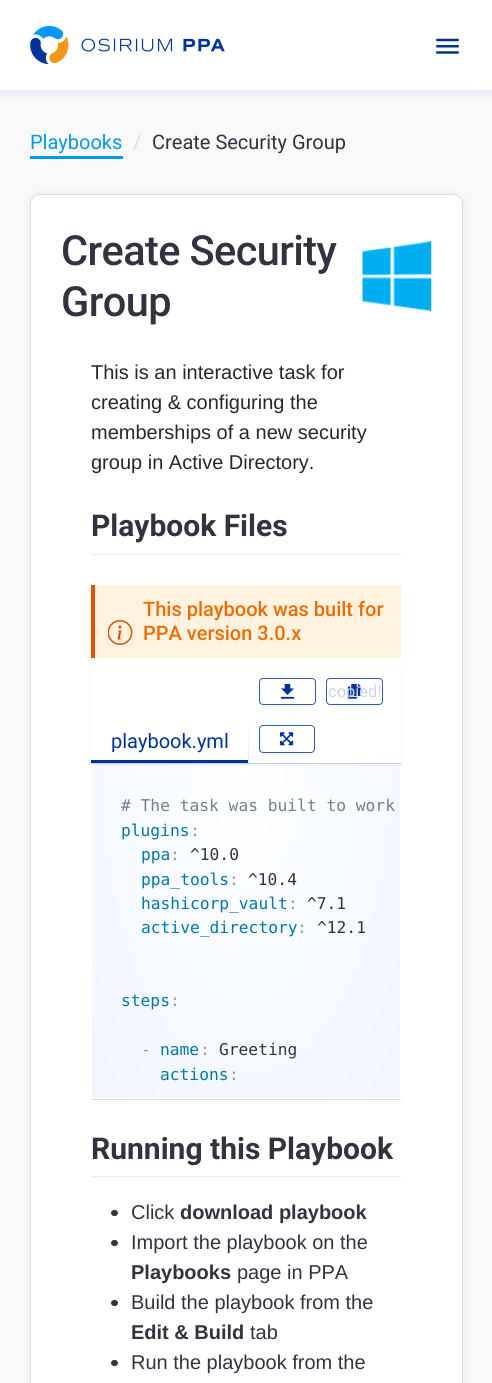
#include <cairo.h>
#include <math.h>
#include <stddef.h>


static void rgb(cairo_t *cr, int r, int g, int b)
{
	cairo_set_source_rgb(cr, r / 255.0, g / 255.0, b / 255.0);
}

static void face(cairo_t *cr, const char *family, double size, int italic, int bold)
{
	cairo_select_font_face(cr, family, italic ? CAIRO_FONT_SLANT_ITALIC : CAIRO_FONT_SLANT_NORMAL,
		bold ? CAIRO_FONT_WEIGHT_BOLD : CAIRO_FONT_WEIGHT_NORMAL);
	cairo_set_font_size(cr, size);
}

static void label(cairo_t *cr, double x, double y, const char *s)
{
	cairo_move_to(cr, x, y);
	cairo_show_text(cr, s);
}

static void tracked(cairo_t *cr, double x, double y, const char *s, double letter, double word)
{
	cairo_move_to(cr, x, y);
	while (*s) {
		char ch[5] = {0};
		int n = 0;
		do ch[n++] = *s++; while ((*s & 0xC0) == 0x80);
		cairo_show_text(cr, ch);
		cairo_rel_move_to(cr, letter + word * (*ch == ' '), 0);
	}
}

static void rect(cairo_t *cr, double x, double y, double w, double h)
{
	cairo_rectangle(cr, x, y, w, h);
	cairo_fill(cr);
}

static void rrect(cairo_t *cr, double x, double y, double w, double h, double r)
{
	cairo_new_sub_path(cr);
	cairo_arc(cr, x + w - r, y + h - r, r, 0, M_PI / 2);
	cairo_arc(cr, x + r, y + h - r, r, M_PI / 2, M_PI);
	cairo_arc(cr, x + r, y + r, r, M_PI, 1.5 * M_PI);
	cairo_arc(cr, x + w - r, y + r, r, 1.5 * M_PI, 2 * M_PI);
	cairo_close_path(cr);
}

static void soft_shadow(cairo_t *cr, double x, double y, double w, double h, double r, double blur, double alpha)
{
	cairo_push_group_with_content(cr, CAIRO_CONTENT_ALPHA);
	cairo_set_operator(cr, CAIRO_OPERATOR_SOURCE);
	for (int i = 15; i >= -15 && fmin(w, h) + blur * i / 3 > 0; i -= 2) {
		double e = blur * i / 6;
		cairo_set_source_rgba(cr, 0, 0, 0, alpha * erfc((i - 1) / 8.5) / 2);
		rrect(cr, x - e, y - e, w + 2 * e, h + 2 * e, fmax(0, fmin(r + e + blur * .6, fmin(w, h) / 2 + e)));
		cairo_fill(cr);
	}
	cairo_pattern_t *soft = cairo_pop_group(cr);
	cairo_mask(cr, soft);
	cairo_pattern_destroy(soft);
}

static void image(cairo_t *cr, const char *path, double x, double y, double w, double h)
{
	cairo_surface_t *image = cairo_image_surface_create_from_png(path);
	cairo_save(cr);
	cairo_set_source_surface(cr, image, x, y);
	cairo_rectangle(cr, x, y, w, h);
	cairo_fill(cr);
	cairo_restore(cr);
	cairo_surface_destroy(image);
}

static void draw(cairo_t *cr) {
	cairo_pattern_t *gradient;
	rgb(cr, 249, 249, 250);
	cairo_paint(cr);
	rgb(cr, 0, 51, 136);
	soft_shadow(cr, 0, 3, 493, 90, 0, 5, 0.1);
	rgb(cr, 255, 255, 255);
	rect(cr, 0, 0, 492, 90);
	image(cr, "image0.png", 30, 25, 195, 40);
	image(cr, "image1.png", 436, 38, 23, 16);
	rgb(cr, 0, 153, 238);
	rect(cr, 30, 156, 93, 3);
	face(cr, "Roboto", 20, 0, 0);
	label(cr, 30, 149, "Playbooks");
	rgb(cr, 221, 221, 221);
	label(cr, 133, 149, "/");
	rgb(cr, 50, 50, 64);
	label(cr, 152, 149, "Create Security Group");
	rgb(cr, 0, 51, 136);
	soft_shadow(cr, 30, 196, 433, 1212, 10, 5, 0.1);
	rgb(cr, 255, 255, 255);
	cairo_new_path(cr);
	cairo_move_to(cr, 40, 194);
	cairo_line_to(cr, 453, 194);
	cairo_curve_to(cr, 458.5, 194, 463, 198.5, 463, 204);
	cairo_line_to(cr, 463, 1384);
	cairo_line_to(cr, 30, 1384);
	cairo_line_to(cr, 30, 204);
	cairo_curve_to(cr, 30, 198.5, 34.5, 194, 40, 194);
	cairo_close_path(cr);
	cairo_fill(cr);
	rrect(cr, 30.5, 194.5, 432, 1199, 9.5);
	rgb(cr, 221, 221, 221);
	cairo_set_line_width(cr, 1);
	cairo_stroke(cr);
	face(cr, "Roboto Medium", 41.5, 0, 0);
	rgb(cr, 50, 50, 64);
	tracked(cr, 61, 265, "Create Security", -0.6, 0);
	tracked(cr, 61, 316, "Group", -0.6, 0);
	image(cr, "image2.png", 362, 241, 70, 71);
	face(cr, "Liberation Sans", 20, 0, 0);
	rgb(cr, 36, 41, 46);
	label(cr, 91, 379, "This is an interactive task for");
	label(cr, 91, 409, "creating & configuring the");
	label(cr, 91, 439, "memberships of a new security");
	label(cr, 91, 469, "group in Active Directory.");
	rgb(cr, 234, 236, 239);
	rect(cr, 91, 554, 310, 1);
	face(cr, "Roboto", 30, 0, 1);
	rgb(cr, 50, 50, 64);
	label(cr, 91, 536, "Playbook Files");
	rgb(cr, 255, 243, 224);
	rect(cr, 95, 585, 306, 73);
	rgb(cr, 230, 81, 0);
	rect(cr, 91, 585, 4, 73);
	image(cr, "image3.png", 108, 620, 25, 25);
	face(cr, "Roboto Medium", 20, 0, 0);
	rgb(cr, 237, 108, 2);
	label(cr, 143, 616, "This playbook was built for");
	label(cr, 143, 640, "PPA version 3.0.x");
	gradient = cairo_pattern_create_radial(0, 0, 0, 0, 0, 1);
	cairo_pattern_set_matrix(gradient, &(cairo_matrix_t){1.0 / 219, 0, 0, 1.0 / 474, -1.0 * 246 / 219, -1.0 * 764 / 474});
	cairo_pattern_add_color_stop_rgba(gradient, 0, 0.996, 1, 1, 1);
	cairo_pattern_add_color_stop_rgba(gradient, 1, 0.945, 0.965, 1, 1);
	cairo_set_source(cr, gradient);
	cairo_pattern_destroy(gradient);
	rect(cr, 92, 765, 308, 333);
	rgb(cr, 221, 221, 221);
	rect(cr, 91, 763, 310, 1);
	cairo_save(cr);
	cairo_set_fill_rule(cr, CAIRO_FILL_RULE_EVEN_ODD);
	cairo_new_path(cr);
	cairo_move_to(cr, 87, 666);
	cairo_line_to(cr, 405, 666);
	cairo_line_to(cr, 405, 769);
	cairo_line_to(cr, 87, 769);
	cairo_close_path(cr);
	cairo_move_to(cr, 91, 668);
	cairo_line_to(cr, 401, 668);
	cairo_line_to(cr, 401, 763);
	cairo_line_to(cr, 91, 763);
	cairo_close_path(cr);
	cairo_clip(cr);
	rgb(cr, 0, 51, 136);
	soft_shadow(cr, 91, 670, 310, 95, 0, 1, 0.1);
	cairo_restore(cr);
	rrect(cr, 259.5, 678.5, 56, 26, 3.5);
	rgb(cr, 51, 92, 173);
	cairo_stroke(cr);
	image(cr, "image4.png", 280, 684, 15, 15);
	rrect(cr, 326.5, 678.5, 56, 26, 3.5);
	cairo_stroke(cr);
	image(cr, "image5.png", 348, 684, 13, 15);
	face(cr, "Roboto", 16.5, 0, 0);
	rgb(cr, 202, 213, 234);
	label(cr, 328, 697, "copied!");
	rrect(cr, 259.5, 725.5, 55, 27, 3.5);
	rgb(cr, 51, 92, 173);
	cairo_stroke(cr);
	image(cr, "image6.png", 280, 732, 14, 14);
	rgb(cr, 0, 51, 153);
	rect(cr, 91, 760, 158, 3);
	gradient = cairo_pattern_create_linear(248, 719, 248, 763);
	cairo_pattern_add_color_stop_rgba(gradient, 0, 0.914, 0.914, 0.914, 0);
	cairo_pattern_add_color_stop_rgba(gradient, 1, 0.914, 0.914, 0.914, 1);
	cairo_set_source(cr, gradient);
	cairo_pattern_destroy(gradient);
	rect(cr, 248, 719, 1, 44);
	face(cr, "Roboto", 20, 0, 0);
	rgb(cr, 0, 51, 153);
	label(cr, 111, 748, "playbook.yml");
	rgb(cr, 221, 221, 221);
	rect(cr, 91, 1099, 310, 1);
	face(cr, "DejaVu Sans Mono", 16.25, 0, 0);
	rgb(cr, 112, 128, 144);
	label(cr, 121, 811, "# The task was built to work");
	rgb(cr, 0, 119, 170);
	label(cr, 121, 836, "plugins");
	rgb(cr, 153, 153, 153);
	label(cr, 190, 836, ":");
	rgb(cr, 0, 119, 170);
	label(cr, 141, 860, "ppa");
	rgb(cr, 153, 153, 153);
	label(cr, 170, 860, ":");
	rgb(cr, 50, 50, 64);
	label(cr, 190, 860, "^10.0");
	rgb(cr, 0, 119, 170);
	label(cr, 141, 885, "ppa_tools");
	rgb(cr, 153, 153, 153);
	label(cr, 229, 885, ":");
	rgb(cr, 50, 50, 64);
	label(cr, 248, 885, "^10.4");
	rgb(cr, 0, 119, 170);
	label(cr, 141, 909, "hashicorp_vault");
	rgb(cr, 153, 153, 153);
	label(cr, 288, 909, ":");
	rgb(cr, 50, 50, 64);
	label(cr, 307, 909, "^7.1");
	rgb(cr, 0, 119, 170);
	label(cr, 141, 933, "active_directory");
	rgb(cr, 153, 153, 153);
	label(cr, 297, 933, ":");
	rgb(cr, 50, 50, 64);
	label(cr, 317, 933, "^12.1");
	rgb(cr, 0, 119, 170);
	label(cr, 121, 1006, "steps");
	rgb(cr, 153, 153, 153);
	label(cr, 170, 1006, ":");
	label(cr, 141, 1055, "-");
	rgb(cr, 0, 119, 170);
	label(cr, 160, 1055, "name");
	rgb(cr, 153, 153, 153);
	label(cr, 200, 1055, ":");
	rgb(cr, 50, 50, 64);
	label(cr, 219, 1055, "Greeting");
	rgb(cr, 0, 119, 170);
	label(cr, 160, 1080, "actions");
	rgb(cr, 153, 153, 153);
	label(cr, 229, 1080, ":");
	rgb(cr, 234, 236, 239);
	rect(cr, 91, 1176, 310, 1);
	face(cr, "Roboto", 30, 0, 1);
	rgb(cr, 50, 50, 64);
	label(cr, 91, 1159, "Running this Playbook");
	rgb(cr, 51, 51, 65);
	rrect(cr, 111, 1210, 7, 6, 3);
	cairo_fill(cr);
	face(cr, "Liberation Sans", 20, 0, 0);
	rgb(cr, 50, 50, 64);
	label(cr, 131, 1219, "Click");
	face(cr, "Liberation Sans", 20, 0, 1);
	label(cr, 180, 1219, "download playbook");
	rgb(cr, 51, 51, 65);
	rrect(cr, 111, 1240, 7, 6, 3);
	cairo_fill(cr);
	face(cr, "Liberation Sans", 20, 0, 0);
	rgb(cr, 50, 50, 64);
	label(cr, 131, 1249, "Import the playbook on the");
	face(cr, "Liberation Sans", 20, 0, 1);
	label(cr, 131, 1279, "Playbooks");
	face(cr, "Liberation Sans", 20, 0, 0);
	label(cr, 237, 1279, "page in PPA");
	rgb(cr, 51, 51, 65);
	rrect(cr, 111, 1300, 7, 6, 3);
	cairo_fill(cr);
	rgb(cr, 50, 50, 64);
	label(cr, 131, 1309, "Build the playbook from the");
	face(cr, "Liberation Sans", 20, 0, 1);
	label(cr, 131, 1339, "Edit & Build");
	face(cr, "Liberation Sans", 20, 0, 0);
	label(cr, 250, 1339, "tab");
	rgb(cr, 51, 51, 65);
	rrect(cr, 111, 1360, 7, 6, 3);
	cairo_fill(cr);
	rgb(cr, 50, 50, 64);
	label(cr, 131, 1369, "Run the playbook from the");
}

int main(void) {
	cairo_surface_t *surface = cairo_image_surface_create(CAIRO_FORMAT_RGB24, 492, 1383);
	cairo_t *cr = cairo_create(surface);
	cairo_font_options_t *options = cairo_font_options_create();
	cairo_font_options_set_hint_metrics(options, CAIRO_HINT_METRICS_OFF);
	cairo_font_options_set_hint_style(options, CAIRO_HINT_STYLE_NONE);
	cairo_set_font_options(cr, options);
	cairo_set_miter_limit(cr, 4);
	draw(cr);
	cairo_surface_write_to_png(surface, "render.png");
	cairo_font_options_destroy(options);
	cairo_destroy(cr);
	cairo_surface_destroy(surface);
	return 0;
}
